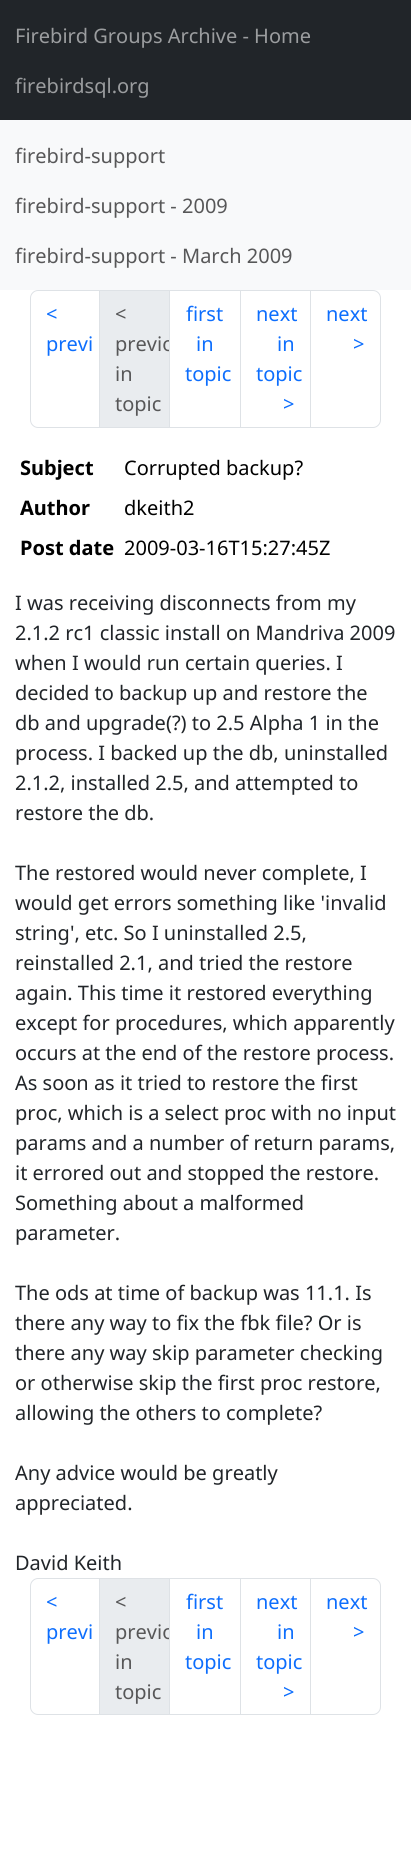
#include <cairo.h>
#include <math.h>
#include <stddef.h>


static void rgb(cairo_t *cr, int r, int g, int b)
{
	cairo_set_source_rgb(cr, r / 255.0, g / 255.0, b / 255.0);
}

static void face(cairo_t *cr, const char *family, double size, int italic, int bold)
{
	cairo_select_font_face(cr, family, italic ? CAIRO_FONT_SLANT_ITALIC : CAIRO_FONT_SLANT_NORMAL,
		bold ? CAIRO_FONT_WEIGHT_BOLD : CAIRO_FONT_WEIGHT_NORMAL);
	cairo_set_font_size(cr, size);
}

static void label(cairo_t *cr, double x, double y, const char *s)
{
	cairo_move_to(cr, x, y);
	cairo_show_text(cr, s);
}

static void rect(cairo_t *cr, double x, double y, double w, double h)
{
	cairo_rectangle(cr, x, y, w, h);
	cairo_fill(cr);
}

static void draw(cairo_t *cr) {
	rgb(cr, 255, 255, 255);
	cairo_paint(cr);
	rgb(cr, 33, 37, 41);
	rect(cr, 0, 0, 411, 120);
	face(cr, "Noto Sans", 20, 0, 0);
	rgb(cr, 155, 157, 159);
	label(cr, 15, 43, "Firebird Groups Archive - Home");
	label(cr, 15, 93, "firebirdsql.org");
	rgb(cr, 248, 249, 250);
	rect(cr, 0, 120, 411, 170);
	rgb(cr, 87, 87, 88);
	label(cr, 15, 163, "firebird-support");
	label(cr, 15, 213, "firebird-support - 2009");
	label(cr, 15, 263, "firebird-support - March 2009");
	cairo_new_path(cr);
	cairo_move_to(cr, 38, 290.5);
	cairo_line_to(cr, 99.5, 290.5);
	cairo_line_to(cr, 99.5, 427.5);
	cairo_line_to(cr, 38, 427.5);
	cairo_curve_to(cr, 34, 427.5, 30.5, 424, 30.5, 420);
	cairo_line_to(cr, 30.5, 298);
	cairo_curve_to(cr, 30.5, 294, 34, 290.5, 38, 290.5);
	cairo_close_path(cr);
	rgb(cr, 222, 226, 230);
	cairo_set_line_width(cr, 1);
	cairo_stroke(cr);
	rgb(cr, 13, 110, 253);
	label(cr, 46, 321, "<");
	label(cr, 46, 351, "previ");
	rgb(cr, 233, 236, 239);
	cairo_rectangle(cr, 99.5, 290.5, 70, 137);
	cairo_fill_preserve(cr);
	rgb(cr, 222, 226, 230);
	cairo_stroke(cr);
	rgb(cr, 87, 87, 88);
	label(cr, 115, 321, "<");
	label(cr, 115, 351, "previo");
	label(cr, 115, 381, "in");
	label(cr, 115, 411, "topic");
	rgb(cr, 255, 255, 255);
	rect(cr, 170, 340, 4, 11);
	cairo_rectangle(cr, 169.5, 290.5, 71, 137);
	rgb(cr, 222, 226, 230);
	cairo_stroke(cr);
	rgb(cr, 13, 110, 253);
	label(cr, 186, 321, "first");
	label(cr, 196, 351, "in");
	label(cr, 185, 381, "topic");
	cairo_rectangle(cr, 240.5, 290.5, 70, 137);
	rgb(cr, 222, 226, 230);
	cairo_stroke(cr);
	rgb(cr, 13, 110, 253);
	label(cr, 256, 321, "next");
	label(cr, 277, 351, "in");
	label(cr, 256, 381, "topic");
	label(cr, 283, 411, ">");
	rgb(cr, 255, 255, 255);
	cairo_new_path(cr);
	cairo_move_to(cr, 310.5, 290.5);
	cairo_line_to(cr, 373, 290.5);
	cairo_curve_to(cr, 377, 290.5, 380.5, 294, 380.5, 298);
	cairo_line_to(cr, 380.5, 420);
	cairo_curve_to(cr, 380.5, 424, 377, 427.5, 373, 427.5);
	cairo_line_to(cr, 310.5, 427.5);
	cairo_close_path(cr);
	cairo_fill_preserve(cr);
	rgb(cr, 222, 226, 230);
	cairo_stroke(cr);
	rgb(cr, 13, 110, 253);
	label(cr, 326, 321, "next");
	label(cr, 353, 351, ">");
	face(cr, "Noto Sans", 20, 0, 1);
	rgb(cr, 0, 0, 0);
	label(cr, 20, 475, "Subject");
	face(cr, "Noto Sans", 20, 0, 0);
	label(cr, 124, 475, "Corrupted backup?");
	face(cr, "Noto Sans", 20, 0, 1);
	label(cr, 20, 515, "Author");
	face(cr, "Noto Sans", 20, 0, 0);
	label(cr, 124, 515, "dkeith2");
	face(cr, "Noto Sans", 20, 0, 1);
	label(cr, 20, 555, "Post date");
	face(cr, "Noto Sans", 20, 0, 0);
	label(cr, 124, 555, "2009-03-16T15:27:45Z");
	rgb(cr, 33, 37, 41);
	label(cr, 15, 610, "I was receiving disconnects from my");
	label(cr, 15, 640, "2.1.2 rc1 classic install on Mandriva 2009");
	label(cr, 15, 670, "when I would run certain queries. I");
	label(cr, 15, 700, "decided to backup up and restore the");
	label(cr, 15, 730, "db and upgrade(?) to 2.5 Alpha 1 in the");
	label(cr, 15, 760, "process. I backed up the db, uninstalled");
	label(cr, 15, 790, "2.1.2, installed 2.5, and attempted to");
	label(cr, 15, 820, "restore the db.");
	label(cr, 15, 880, "The restored would never complete, I");
	label(cr, 15, 910, "would get errors something like 'invalid");
	label(cr, 15, 940, "string', etc. So I uninstalled 2.5,");
	label(cr, 15, 970, "reinstalled 2.1, and tried the restore");
	label(cr, 15, 1000, "again. This time it restored everything");
	label(cr, 15, 1030, "except for procedures, which apparently");
	label(cr, 15, 1060, "occurs at the end of the restore process.");
	label(cr, 15, 1090, "As soon as it tried to restore the first");
	label(cr, 15, 1120, "proc, which is a select proc with no input");
	label(cr, 15, 1150, "params and a number of return params,");
	label(cr, 15, 1180, "it errored out and stopped the restore.");
	label(cr, 15, 1210, "Something about a malformed");
	label(cr, 15, 1240, "parameter.");
	label(cr, 15, 1300, "The ods at time of backup was 11.1. Is");
	label(cr, 15, 1330, "there any way to fix the fbk file? Or is");
	label(cr, 15, 1360, "there any way skip parameter checking");
	label(cr, 15, 1390, "or otherwise skip the first proc restore,");
	label(cr, 15, 1420, "allowing the others to complete?");
	label(cr, 15, 1480, "Any advice would be greatly");
	label(cr, 15, 1510, "appreciated.");
	label(cr, 15, 1570, "David Keith");
	cairo_new_path(cr);
	cairo_move_to(cr, 38, 1578.5);
	cairo_line_to(cr, 99.5, 1578.5);
	cairo_line_to(cr, 99.5, 1714.5);
	cairo_line_to(cr, 38, 1714.5);
	cairo_curve_to(cr, 34, 1714.5, 30.5, 1711, 30.5, 1707);
	cairo_line_to(cr, 30.5, 1586);
	cairo_curve_to(cr, 30.5, 1582, 34, 1578.5, 38, 1578.5);
	cairo_close_path(cr);
	rgb(cr, 222, 226, 230);
	cairo_stroke(cr);
	rgb(cr, 13, 110, 253);
	label(cr, 46, 1609, "<");
	label(cr, 46, 1639, "previ");
	rgb(cr, 233, 236, 239);
	cairo_rectangle(cr, 99.5, 1578.5, 70, 136);
	cairo_fill_preserve(cr);
	rgb(cr, 222, 226, 230);
	cairo_stroke(cr);
	rgb(cr, 87, 87, 88);
	label(cr, 115, 1609, "<");
	label(cr, 115, 1639, "previo");
	label(cr, 115, 1669, "in");
	label(cr, 115, 1699, "topic");
	rgb(cr, 255, 255, 255);
	rect(cr, 170, 1628, 4, 11);
	cairo_rectangle(cr, 169.5, 1578.5, 71, 136);
	rgb(cr, 222, 226, 230);
	cairo_stroke(cr);
	rgb(cr, 13, 110, 253);
	label(cr, 186, 1609, "first");
	label(cr, 196, 1639, "in");
	label(cr, 185, 1669, "topic");
	cairo_rectangle(cr, 240.5, 1578.5, 70, 136);
	rgb(cr, 222, 226, 230);
	cairo_stroke(cr);
	rgb(cr, 13, 110, 253);
	label(cr, 256, 1609, "next");
	label(cr, 277, 1639, "in");
	label(cr, 256, 1669, "topic");
	label(cr, 283, 1699, ">");
	rgb(cr, 255, 255, 255);
	cairo_new_path(cr);
	cairo_move_to(cr, 310.5, 1578.5);
	cairo_line_to(cr, 373, 1578.5);
	cairo_curve_to(cr, 377, 1578.5, 380.5, 1582, 380.5, 1586);
	cairo_line_to(cr, 380.5, 1707);
	cairo_curve_to(cr, 380.5, 1711, 377, 1714.5, 373, 1714.5);
	cairo_line_to(cr, 310.5, 1714.5);
	cairo_close_path(cr);
	cairo_fill_preserve(cr);
	rgb(cr, 222, 226, 230);
	cairo_stroke(cr);
	rgb(cr, 13, 110, 253);
	label(cr, 326, 1609, "next");
	label(cr, 353, 1639, ">");
}

int main(void) {
	cairo_surface_t *surface = cairo_image_surface_create(CAIRO_FORMAT_RGB24, 411, 1863);
	cairo_t *cr = cairo_create(surface);
	cairo_font_options_t *options = cairo_font_options_create();
	cairo_font_options_set_hint_metrics(options, CAIRO_HINT_METRICS_OFF);
	cairo_font_options_set_hint_style(options, CAIRO_HINT_STYLE_NONE);
	cairo_set_font_options(cr, options);
	cairo_set_miter_limit(cr, 4);
	draw(cr);
	cairo_surface_write_to_png(surface, "render.png");
	cairo_font_options_destroy(options);
	cairo_destroy(cr);
	cairo_surface_destroy(surface);
	return 0;
}
